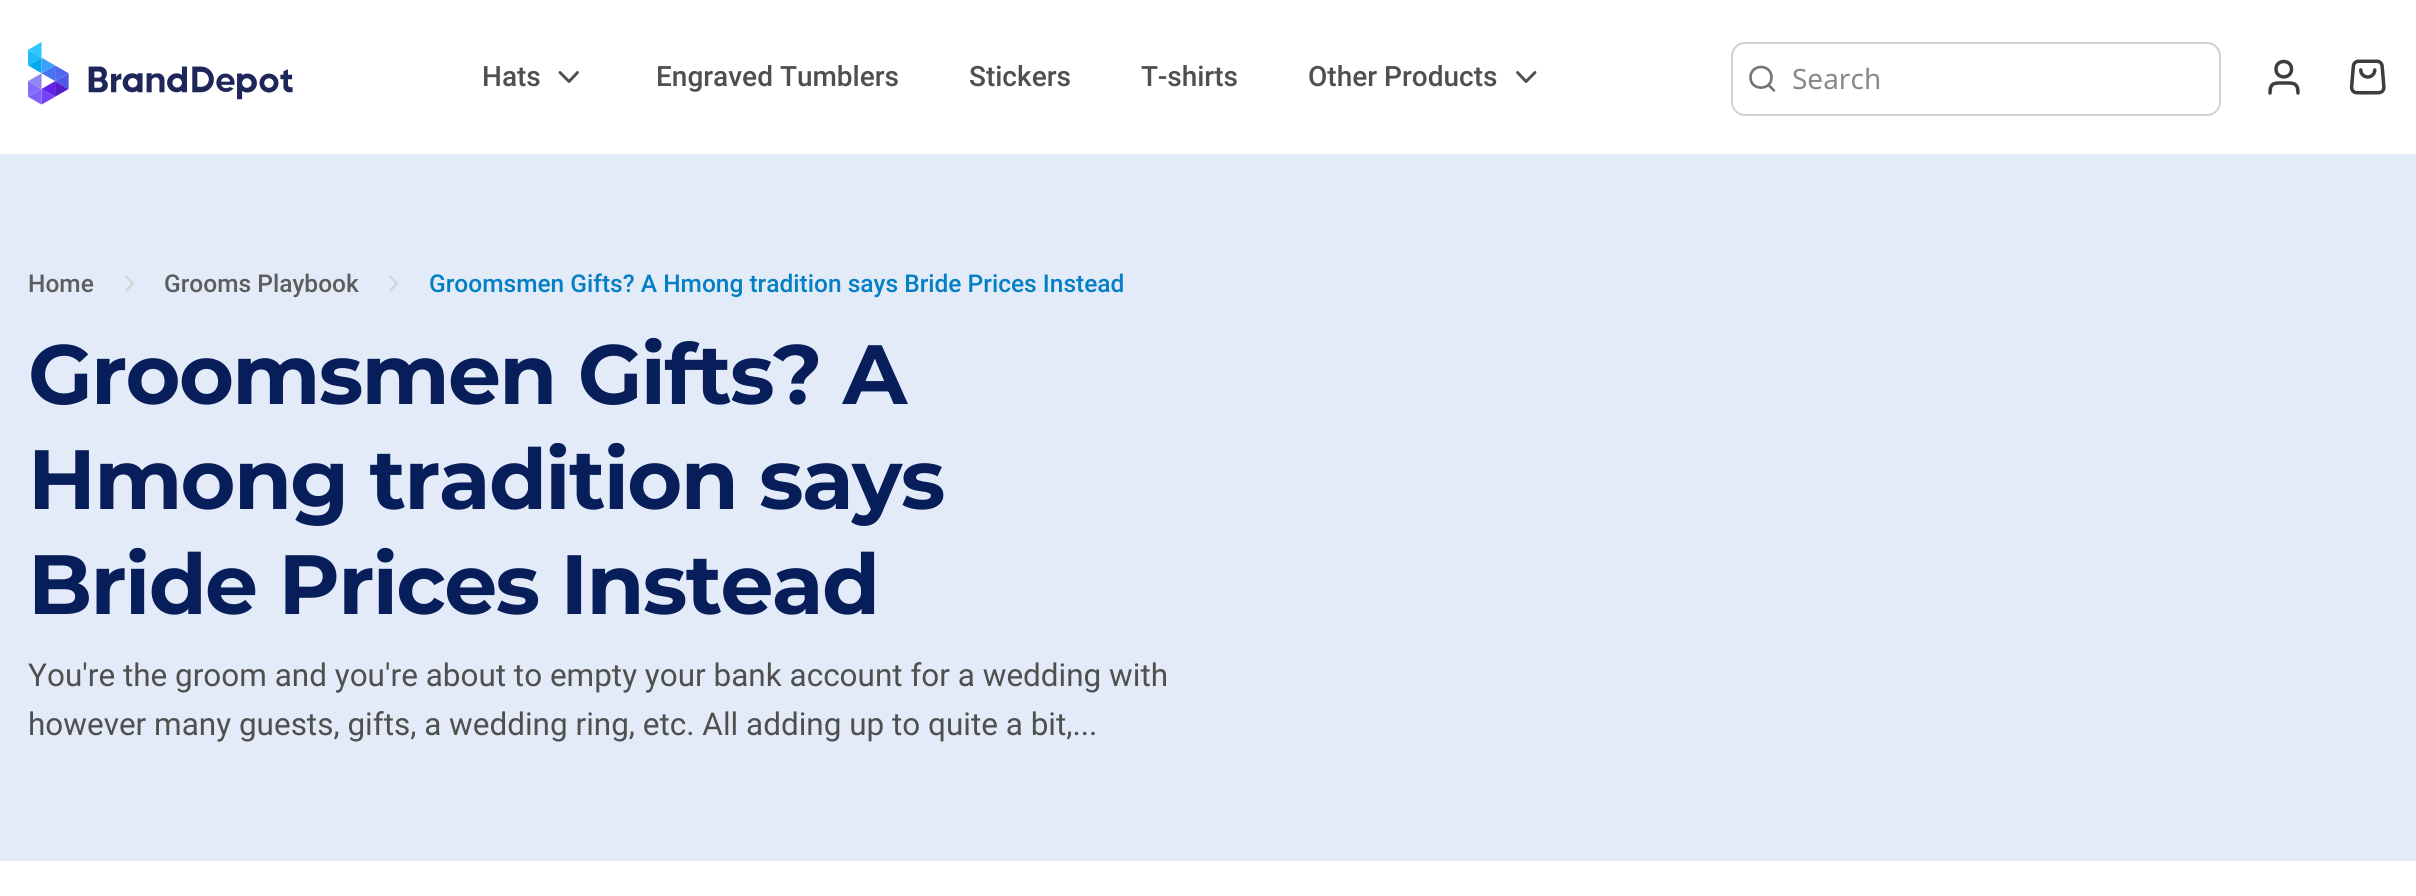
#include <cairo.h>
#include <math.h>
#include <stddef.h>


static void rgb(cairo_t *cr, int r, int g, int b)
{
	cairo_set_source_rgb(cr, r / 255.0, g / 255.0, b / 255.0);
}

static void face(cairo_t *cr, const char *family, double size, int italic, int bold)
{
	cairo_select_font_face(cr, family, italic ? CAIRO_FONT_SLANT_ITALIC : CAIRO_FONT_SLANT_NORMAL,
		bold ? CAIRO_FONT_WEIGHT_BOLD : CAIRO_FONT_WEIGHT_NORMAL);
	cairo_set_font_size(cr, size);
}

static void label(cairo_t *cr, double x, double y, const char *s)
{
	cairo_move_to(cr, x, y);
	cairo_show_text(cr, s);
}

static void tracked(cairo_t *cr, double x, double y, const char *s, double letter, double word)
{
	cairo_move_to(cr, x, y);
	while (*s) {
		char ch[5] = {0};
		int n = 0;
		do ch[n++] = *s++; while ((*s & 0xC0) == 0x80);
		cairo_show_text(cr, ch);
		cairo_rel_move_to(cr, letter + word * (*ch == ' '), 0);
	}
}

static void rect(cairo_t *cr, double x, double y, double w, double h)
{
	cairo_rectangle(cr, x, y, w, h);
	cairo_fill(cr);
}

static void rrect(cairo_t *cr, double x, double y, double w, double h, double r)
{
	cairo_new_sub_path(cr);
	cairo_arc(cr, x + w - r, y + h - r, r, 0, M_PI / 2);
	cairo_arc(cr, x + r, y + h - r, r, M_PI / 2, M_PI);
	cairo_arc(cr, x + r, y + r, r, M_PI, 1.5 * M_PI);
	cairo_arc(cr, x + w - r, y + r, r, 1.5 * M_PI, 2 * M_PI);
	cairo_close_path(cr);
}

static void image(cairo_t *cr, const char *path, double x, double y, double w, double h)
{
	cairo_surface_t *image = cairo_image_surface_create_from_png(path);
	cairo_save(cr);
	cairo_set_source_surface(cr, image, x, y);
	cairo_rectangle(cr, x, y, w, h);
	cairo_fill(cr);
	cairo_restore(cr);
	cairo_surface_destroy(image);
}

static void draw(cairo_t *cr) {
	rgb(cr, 255, 255, 255);
	cairo_paint(cr);
	image(cr, "image0.png", 28, 42, 265, 63);
	face(cr, "Roboto Medium", 28, 0, 0);
	rgb(cr, 79, 79, 79);
	label(cr, 482, 86, "Hats");
	cairo_new_path(cr);
	cairo_move_to(cr, 560, 72.5);
	cairo_line_to(cr, 569, 81.5);
	cairo_line_to(cr, 577.5, 72.5);
	cairo_set_line_width(cr, 2.9);
	cairo_set_line_cap(cr, CAIRO_LINE_CAP_ROUND);
	cairo_set_line_join(cr, CAIRO_LINE_JOIN_ROUND);
	cairo_stroke(cr);
	label(cr, 656, 86, "Engraved Tumblers");
	label(cr, 969, 86, "Stickers");
	label(cr, 1141, 86, "T-shirts");
	label(cr, 1308, 86, "Other Products");
	cairo_new_path(cr);
	cairo_move_to(cr, 1517.5, 72.5);
	cairo_line_to(cr, 1526, 81.5);
	cairo_line_to(cr, 1535, 72.5);
	cairo_stroke(cr);
	rrect(cr, 1732, 43, 488, 72, 13);
	rgb(cr, 209, 209, 209);
	cairo_set_line_width(cr, 2);
	cairo_set_line_cap(cr, CAIRO_LINE_CAP_BUTT);
	cairo_set_line_join(cr, CAIRO_LINE_JOIN_MITER);
	cairo_stroke(cr);
	cairo_new_path(cr);
	cairo_move_to(cr, 1774, 90.5);
	cairo_line_to(cr, 1768.5, 85);
	cairo_move_to(cr, 1771.5, 77.5);
	cairo_curve_to(cr, 1771.5, 91, 1750.5, 91, 1750.5, 77.5);
	cairo_curve_to(cr, 1750.5, 63.5, 1771.5, 63.5, 1771.5, 77.5);
	cairo_close_path(cr);
	rgb(cr, 115, 115, 115);
	cairo_set_line_width(cr, 2.6);
	cairo_set_line_cap(cr, CAIRO_LINE_CAP_ROUND);
	cairo_set_line_join(cr, CAIRO_LINE_JOIN_ROUND);
	cairo_stroke(cr);
	rgb(cr, 255, 255, 255);
	rrect(cr, 1778, 44, 441, 70, 14);
	cairo_fill(cr);
	face(cr, "Noto Sans", 28, 0, 0);
	rgb(cr, 136, 136, 136);
	label(cr, 1792, 89, "Search");
	cairo_new_path(cr);
	cairo_move_to(cr, 2298, 93);
	cairo_curve_to(cr, 2298, 82, 2292.5, 83, 2284, 83);
	cairo_curve_to(cr, 2275, 83, 2270, 82, 2270, 93);
	cairo_move_to(cr, 2291.5, 69);
	cairo_curve_to(cr, 2291.5, 79.5, 2276, 79.5, 2276, 69);
	cairo_curve_to(cr, 2276, 59, 2291.5, 59, 2291.5, 69);
	cairo_close_path(cr);
	rgb(cr, 61, 61, 61);
	cairo_set_line_width(cr, 3.5);
	cairo_stroke(cr);
	image(cr, "image1.png", 2349, 59, 37, 36);
	rgb(cr, 226, 235, 247);
	rect(cr, 0, 154, 2416, 707);
	face(cr, "Roboto Medium", 24.5, 0, 0);
	rgb(cr, 93, 93, 93);
	label(cr, 28, 292, "Home");
	cairo_new_path(cr);
	cairo_move_to(cr, 126, 290.5);
	cairo_line_to(cr, 133, 283.5);
	cairo_line_to(cr, 126, 276.5);
	rgb(cr, 214, 214, 214);
	cairo_set_line_width(cr, 2.3);
	cairo_stroke(cr);
	rgb(cr, 93, 93, 93);
	label(cr, 164, 292, "Grooms Playbook");
	cairo_new_path(cr);
	cairo_move_to(cr, 390, 290.5);
	cairo_line_to(cr, 397, 283.5);
	cairo_line_to(cr, 390, 276.5);
	rgb(cr, 214, 214, 214);
	cairo_stroke(cr);
	rgb(cr, 4, 127, 197);
	label(cr, 429, 292, "Groomsmen Gifts? A Hmong tradition says Bride Prices Instead");
	face(cr, "Montserrat", 84, 0, 1);
	rgb(cr, 7, 30, 91);
	tracked(cr, 28, 404, "Groomsmen Gifts? A", -1.7, 0);
	tracked(cr, 28, 509, "Hmong tradition says", -1.7, 0);
	tracked(cr, 28, 614, "Bride Prices Instead", -1.7, 0);
	face(cr, "Roboto", 31.5, 0, 0);
	rgb(cr, 79, 79, 79);
	label(cr, 28, 686, "You're the groom and you're about to empty your bank account for a wedding with");
	label(cr, 28, 735, "however many guests, gifts, a wedding ring, etc. All adding up to quite a bit,...");
}

int main(void) {
	cairo_surface_t *surface = cairo_image_surface_create(CAIRO_FORMAT_RGB24, 2416, 896);
	cairo_t *cr = cairo_create(surface);
	cairo_font_options_t *options = cairo_font_options_create();
	cairo_font_options_set_hint_metrics(options, CAIRO_HINT_METRICS_OFF);
	cairo_font_options_set_hint_style(options, CAIRO_HINT_STYLE_NONE);
	cairo_set_font_options(cr, options);
	cairo_set_miter_limit(cr, 4);
	draw(cr);
	cairo_surface_write_to_png(surface, "render.png");
	cairo_font_options_destroy(options);
	cairo_destroy(cr);
	cairo_surface_destroy(surface);
	return 0;
}
